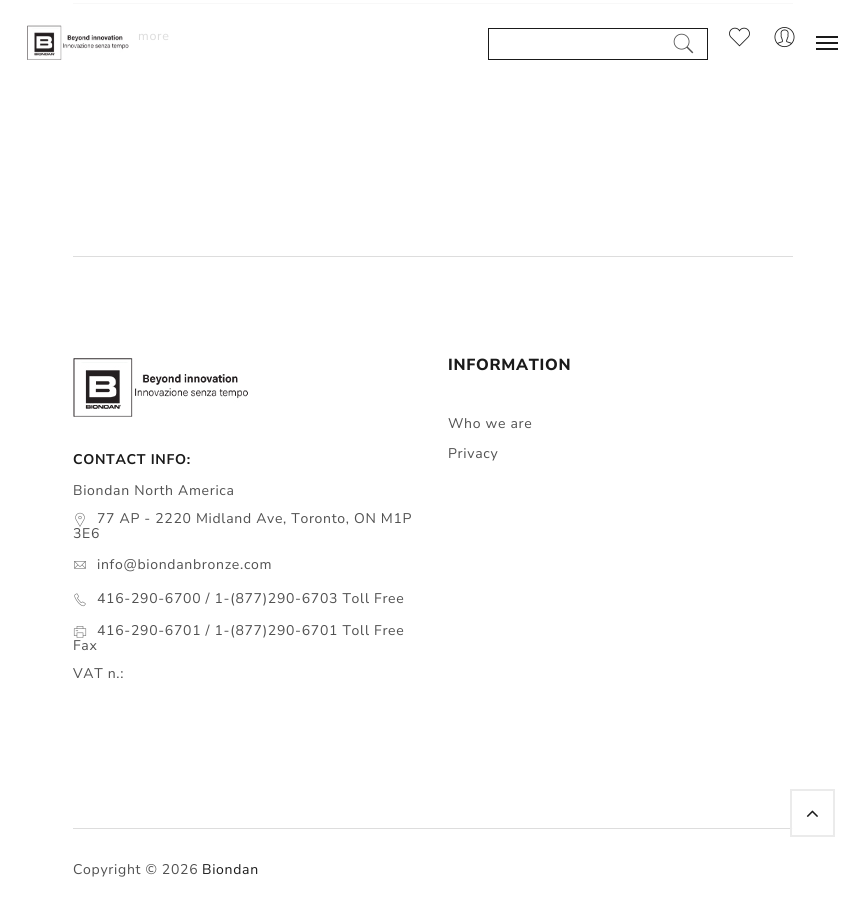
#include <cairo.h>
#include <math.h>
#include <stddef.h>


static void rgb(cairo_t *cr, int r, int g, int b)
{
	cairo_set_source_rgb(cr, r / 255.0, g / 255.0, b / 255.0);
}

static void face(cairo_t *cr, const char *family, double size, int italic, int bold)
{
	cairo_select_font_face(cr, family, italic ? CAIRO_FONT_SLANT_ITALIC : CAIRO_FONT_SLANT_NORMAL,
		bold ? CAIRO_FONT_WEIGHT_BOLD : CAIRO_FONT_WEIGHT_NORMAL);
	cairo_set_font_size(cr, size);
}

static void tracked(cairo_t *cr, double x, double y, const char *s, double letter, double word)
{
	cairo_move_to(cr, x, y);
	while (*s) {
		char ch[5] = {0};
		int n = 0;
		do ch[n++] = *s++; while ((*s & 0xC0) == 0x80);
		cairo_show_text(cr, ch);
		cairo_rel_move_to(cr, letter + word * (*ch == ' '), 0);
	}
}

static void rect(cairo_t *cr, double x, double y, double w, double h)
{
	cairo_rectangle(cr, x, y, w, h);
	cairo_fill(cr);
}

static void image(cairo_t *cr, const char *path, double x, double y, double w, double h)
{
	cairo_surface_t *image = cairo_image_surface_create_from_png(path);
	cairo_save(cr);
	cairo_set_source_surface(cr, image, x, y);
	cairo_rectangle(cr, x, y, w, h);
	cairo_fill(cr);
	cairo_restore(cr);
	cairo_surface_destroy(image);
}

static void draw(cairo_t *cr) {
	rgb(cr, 255, 255, 255);
	cairo_paint(cr);
	image(cr, "image0.png", 27, 25, 102, 35);
	cairo_rectangle(cr, 488.5, 28.5, 219, 31);
	rgb(cr, 26, 26, 26);
	cairo_set_line_width(cr, 1);
	cairo_stroke(cr);
	image(cr, "image1.png", 673, 33, 21, 21);
	image(cr, "image2.png", 729, 27, 21, 20);
	image(cr, "image3.png", 774, 27, 21, 21);
	rect(cr, 816, 36, 22, 2);
	rect(cr, 816, 42, 22, 2);
	rect(cr, 816, 48, 22, 2);
	rgb(cr, 248, 248, 248);
	rect(cr, 73, 3, 720, 1);
	face(cr, "Nunito Sans", 12.5, 0, 0);
	rgb(cr, 220, 220, 220);
	tracked(cr, 138, 40, "more", 0.7, 0);
	rgb(cr, 221, 221, 221);
	rect(cr, 73, 256, 720, 1);
	face(cr, "Nunito Sans ExtraBold", 16, 0, 0);
	rgb(cr, 26, 26, 26);
	tracked(cr, 448, 370, "INFORMATION", 0.7, 0);
	face(cr, "Nunito Sans", 14, 0, 0);
	rgb(cr, 80, 80, 80);
	tracked(cr, 448, 428, "Who we are", 0.7, 0);
	tracked(cr, 448, 458, "Privacy", 0.7, 0);
	image(cr, "image4.png", 73, 358, 175, 59);
	face(cr, "Nunito Sans", 14, 0, 1);
	rgb(cr, 26, 26, 26);
	tracked(cr, 73, 464, "CONTACT INFO:", 0.7, 0);
	face(cr, "Nunito Sans", 14, 0, 0);
	rgb(cr, 80, 80, 80);
	tracked(cr, 73, 495, "Biondan North America", 0.7, 0);
	image(cr, "image5.png", 75, 512, 10, 15);
	tracked(cr, 97, 523, "77 AP - 2220 Midland Ave, Toronto, ON M1P", 0.7, 0);
	tracked(cr, 73, 538, "3E6", 0.7, 0);
	image(cr, "image6.png", 74, 561, 12, 8);
	tracked(cr, 97, 569, "info@biondanbronze.com", 0.7, 0);
	image(cr, "image7.png", 74, 593, 12, 14);
	tracked(cr, 97, 603, "416-290-6700 / 1-(877)290-6703 Toll Free", 0.7, 0);
	image(cr, "image8.png", 73, 626, 14, 12);
	tracked(cr, 97, 635, "416-290-6701 / 1-(877)290-6701 Toll Free", 0.7, 0);
	tracked(cr, 73, 650, "Fax", 0.7, 0);
	tracked(cr, 73, 678, "VAT n.:", 0.7, 0);
	rgb(cr, 221, 221, 221);
	rect(cr, 73, 828, 720, 1);
	rgb(cr, 252, 252, 252);
	rect(cr, 790, 828, 3, 1);
	rgb(cr, 80, 80, 80);
	tracked(cr, 73, 874, "Copyright © 2026", 0.7, 0);
	rgb(cr, 26, 26, 26);
	tracked(cr, 202, 874, "Biondan", 0.7, 0);
	cairo_rectangle(cr, 791, 790, 43, 46);
	rgb(cr, 235, 235, 235);
	cairo_set_line_width(cr, 2);
	cairo_stroke(cr);
	image(cr, "image9.png", 806, 810, 12, 7);
}

int main(void) {
	cairo_surface_t *surface = cairo_image_surface_create(CAIRO_FORMAT_RGB24, 865, 902);
	cairo_t *cr = cairo_create(surface);
	cairo_font_options_t *options = cairo_font_options_create();
	cairo_font_options_set_hint_metrics(options, CAIRO_HINT_METRICS_OFF);
	cairo_font_options_set_hint_style(options, CAIRO_HINT_STYLE_NONE);
	cairo_set_font_options(cr, options);
	cairo_set_miter_limit(cr, 4);
	draw(cr);
	cairo_surface_write_to_png(surface, "render.png");
	cairo_font_options_destroy(options);
	cairo_destroy(cr);
	cairo_surface_destroy(surface);
	return 0;
}
